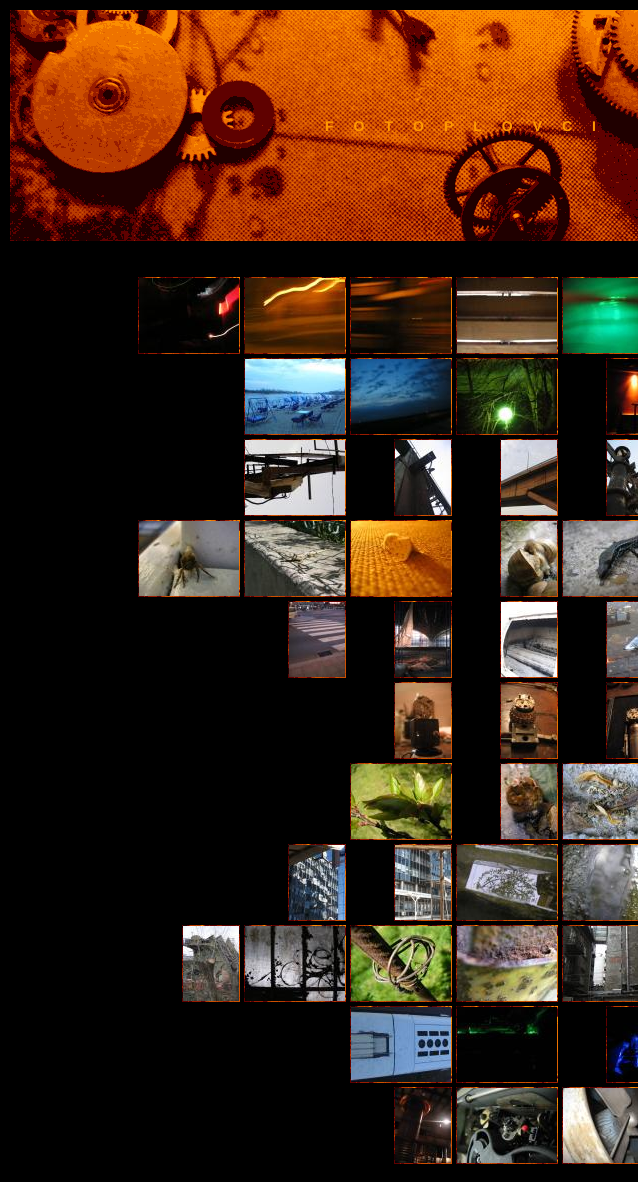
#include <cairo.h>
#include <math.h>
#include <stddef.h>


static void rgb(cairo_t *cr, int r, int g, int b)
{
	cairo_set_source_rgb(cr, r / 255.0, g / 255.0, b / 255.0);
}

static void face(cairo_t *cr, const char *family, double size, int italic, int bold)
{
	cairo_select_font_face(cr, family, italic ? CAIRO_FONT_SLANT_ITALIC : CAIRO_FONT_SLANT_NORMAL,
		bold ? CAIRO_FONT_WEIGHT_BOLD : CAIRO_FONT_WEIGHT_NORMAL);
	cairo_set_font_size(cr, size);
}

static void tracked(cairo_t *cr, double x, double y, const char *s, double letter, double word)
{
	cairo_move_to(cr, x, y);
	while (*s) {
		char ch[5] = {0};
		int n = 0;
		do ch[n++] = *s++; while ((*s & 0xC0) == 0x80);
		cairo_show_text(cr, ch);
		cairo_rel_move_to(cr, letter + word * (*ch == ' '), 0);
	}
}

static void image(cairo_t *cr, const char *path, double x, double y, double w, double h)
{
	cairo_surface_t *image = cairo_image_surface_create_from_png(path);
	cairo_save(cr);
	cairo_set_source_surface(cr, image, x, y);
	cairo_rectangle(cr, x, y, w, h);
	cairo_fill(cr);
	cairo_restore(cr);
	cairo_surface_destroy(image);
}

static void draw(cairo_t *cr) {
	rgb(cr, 0, 0, 0);
	cairo_paint(cr);
	image(cr, "image0.png", 10, 10, 628, 231);
	face(cr, "Liberation Sans", 14, 0, 1);
	rgb(cr, 255, 153, 0);
	tracked(cr, 325, 131, "FOTOPLOVCI", 20, 0);
	image(cr, "image1.png", 138, 277, 102, 77);
	image(cr, "image2.png", 139, 278, 100, 75);
	image(cr, "image1.png", 244, 277, 102, 77);
	image(cr, "image3.png", 245, 278, 100, 75);
	image(cr, "image1.png", 350, 277, 102, 77);
	image(cr, "image4.png", 351, 278, 100, 75);
	image(cr, "image1.png", 456, 277, 102, 77);
	image(cr, "image5.png", 457, 278, 100, 75);
	image(cr, "image6.png", 562, 277, 76, 77);
	image(cr, "image7.png", 563, 278, 75, 75);
	image(cr, "image1.png", 244, 358, 102, 77);
	image(cr, "image8.png", 245, 359, 100, 75);
	image(cr, "image1.png", 350, 358, 102, 77);
	image(cr, "image9.png", 351, 359, 100, 75);
	image(cr, "image1.png", 456, 358, 102, 77);
	image(cr, "image10.png", 457, 359, 100, 75);
	image(cr, "image11.png", 606, 358, 32, 77);
	image(cr, "image12.png", 607, 359, 31, 75);
	image(cr, "image1.png", 244, 439, 102, 77);
	image(cr, "image13.png", 245, 440, 100, 75);
	image(cr, "image14.png", 394, 439, 58, 77);
	image(cr, "image15.png", 395, 440, 56, 75);
	image(cr, "image16.png", 500, 439, 58, 77);
	image(cr, "image17.png", 501, 440, 56, 75);
	image(cr, "image11.png", 606, 439, 32, 77);
	image(cr, "image18.png", 607, 440, 31, 75);
	image(cr, "image1.png", 138, 520, 102, 77);
	image(cr, "image19.png", 139, 521, 100, 75);
	image(cr, "image1.png", 244, 520, 102, 77);
	image(cr, "image20.png", 245, 521, 100, 75);
	image(cr, "image1.png", 350, 520, 102, 77);
	image(cr, "image21.png", 351, 521, 100, 75);
	image(cr, "image16.png", 500, 520, 58, 77);
	image(cr, "image22.png", 501, 521, 56, 75);
	image(cr, "image6.png", 562, 520, 76, 77);
	image(cr, "image23.png", 563, 521, 75, 75);
	image(cr, "image16.png", 288, 601, 58, 77);
	image(cr, "image24.png", 289, 602, 56, 75);
	image(cr, "image14.png", 394, 601, 58, 77);
	image(cr, "image25.png", 395, 602, 56, 75);
	image(cr, "image16.png", 500, 601, 58, 77);
	image(cr, "image26.png", 501, 602, 56, 75);
	image(cr, "image11.png", 606, 601, 32, 77);
	image(cr, "image27.png", 607, 602, 31, 75);
	image(cr, "image14.png", 394, 682, 58, 77);
	image(cr, "image28.png", 395, 683, 56, 75);
	image(cr, "image16.png", 500, 682, 58, 77);
	image(cr, "image29.png", 501, 683, 56, 75);
	image(cr, "image11.png", 606, 682, 32, 77);
	image(cr, "image30.png", 607, 683, 31, 75);
	image(cr, "image1.png", 350, 763, 102, 77);
	image(cr, "image31.png", 351, 764, 100, 75);
	image(cr, "image16.png", 500, 763, 58, 77);
	image(cr, "image32.png", 501, 764, 56, 75);
	image(cr, "image6.png", 562, 763, 76, 77);
	image(cr, "image33.png", 563, 764, 75, 75);
	image(cr, "image16.png", 288, 844, 58, 77);
	image(cr, "image34.png", 289, 845, 56, 75);
	image(cr, "image14.png", 394, 844, 58, 77);
	image(cr, "image35.png", 395, 845, 56, 75);
	image(cr, "image1.png", 456, 844, 102, 77);
	image(cr, "image36.png", 457, 845, 100, 75);
	image(cr, "image6.png", 562, 844, 76, 77);
	image(cr, "image37.png", 563, 845, 75, 75);
	image(cr, "image14.png", 182, 925, 58, 77);
	image(cr, "image38.png", 183, 926, 56, 75);
	image(cr, "image1.png", 244, 925, 102, 77);
	image(cr, "image39.png", 245, 926, 100, 75);
	image(cr, "image1.png", 350, 925, 102, 77);
	image(cr, "image40.png", 351, 926, 100, 75);
	image(cr, "image1.png", 456, 925, 102, 77);
	image(cr, "image41.png", 457, 926, 100, 75);
	image(cr, "image6.png", 562, 925, 76, 77);
	image(cr, "image42.png", 563, 926, 75, 75);
	image(cr, "image1.png", 350, 1006, 102, 77);
	image(cr, "image43.png", 351, 1007, 100, 75);
	image(cr, "image1.png", 456, 1006, 102, 77);
	image(cr, "image44.png", 457, 1007, 100, 75);
	image(cr, "image11.png", 606, 1006, 32, 77);
	image(cr, "image45.png", 607, 1007, 31, 75);
	image(cr, "image14.png", 394, 1087, 58, 77);
	image(cr, "image46.png", 395, 1088, 56, 75);
	image(cr, "image1.png", 456, 1087, 102, 77);
	image(cr, "image47.png", 457, 1088, 100, 75);
	image(cr, "image6.png", 562, 1087, 76, 77);
	image(cr, "image48.png", 563, 1088, 75, 75);
}

int main(void) {
	cairo_surface_t *surface = cairo_image_surface_create(CAIRO_FORMAT_RGB24, 638, 1182);
	cairo_t *cr = cairo_create(surface);
	cairo_font_options_t *options = cairo_font_options_create();
	cairo_font_options_set_hint_metrics(options, CAIRO_HINT_METRICS_OFF);
	cairo_font_options_set_hint_style(options, CAIRO_HINT_STYLE_NONE);
	cairo_set_font_options(cr, options);
	cairo_set_miter_limit(cr, 4);
	draw(cr);
	cairo_surface_write_to_png(surface, "render.png");
	cairo_font_options_destroy(options);
	cairo_destroy(cr);
	cairo_surface_destroy(surface);
	return 0;
}
